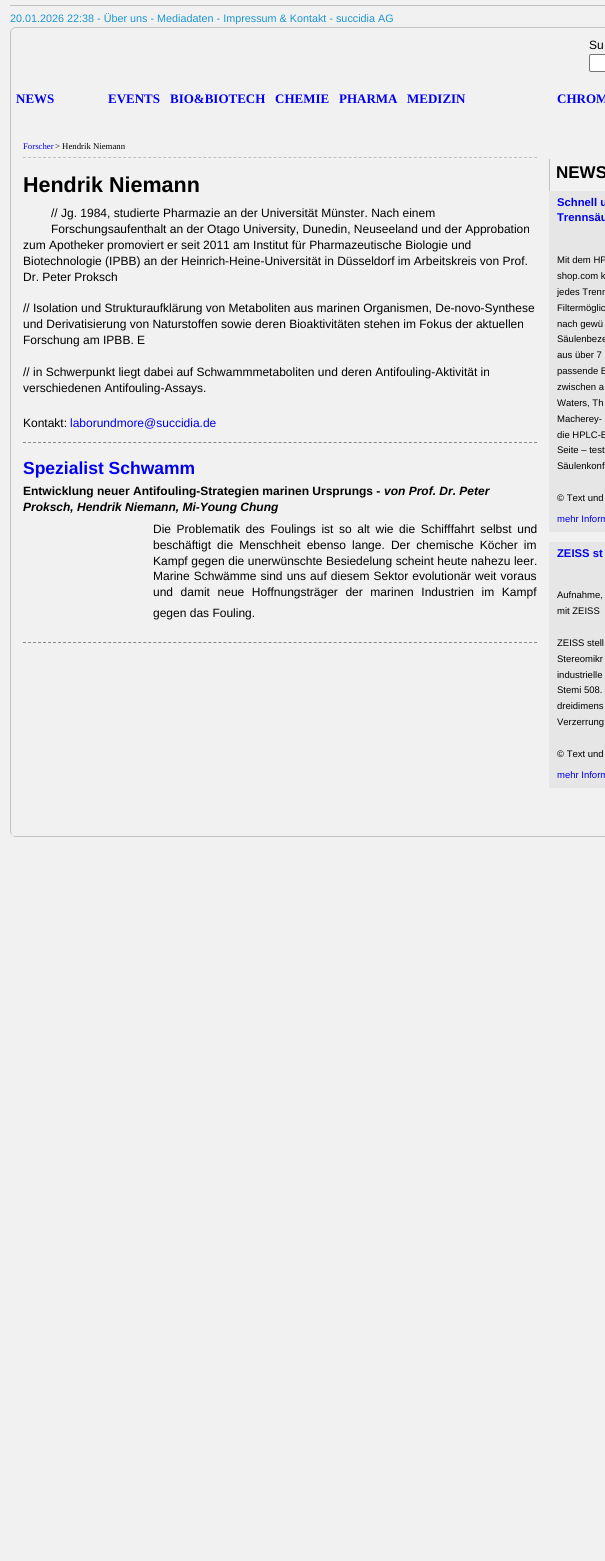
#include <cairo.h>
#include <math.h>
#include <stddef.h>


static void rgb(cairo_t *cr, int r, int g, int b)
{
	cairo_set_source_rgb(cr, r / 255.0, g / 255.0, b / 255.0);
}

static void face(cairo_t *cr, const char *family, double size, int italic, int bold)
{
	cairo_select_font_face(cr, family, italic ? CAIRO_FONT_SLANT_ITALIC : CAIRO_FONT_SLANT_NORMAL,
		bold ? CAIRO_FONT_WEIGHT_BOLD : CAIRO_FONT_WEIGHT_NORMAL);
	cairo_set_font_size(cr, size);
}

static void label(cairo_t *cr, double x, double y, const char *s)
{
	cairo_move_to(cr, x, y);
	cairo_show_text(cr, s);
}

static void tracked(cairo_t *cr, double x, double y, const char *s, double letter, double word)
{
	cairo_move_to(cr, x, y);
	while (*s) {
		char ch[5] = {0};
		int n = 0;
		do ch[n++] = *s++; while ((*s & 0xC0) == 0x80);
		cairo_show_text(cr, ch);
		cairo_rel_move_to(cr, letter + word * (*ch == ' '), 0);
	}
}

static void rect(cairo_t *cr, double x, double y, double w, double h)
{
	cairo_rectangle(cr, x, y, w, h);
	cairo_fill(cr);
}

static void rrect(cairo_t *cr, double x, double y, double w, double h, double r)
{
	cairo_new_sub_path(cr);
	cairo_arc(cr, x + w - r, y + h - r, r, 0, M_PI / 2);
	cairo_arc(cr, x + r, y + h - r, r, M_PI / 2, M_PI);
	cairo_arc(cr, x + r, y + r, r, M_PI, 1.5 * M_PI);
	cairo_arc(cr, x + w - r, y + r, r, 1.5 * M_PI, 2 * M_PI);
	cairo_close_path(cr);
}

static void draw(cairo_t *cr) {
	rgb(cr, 242, 241, 241);
	cairo_paint(cr);
	rgb(cr, 193, 193, 193);
	rect(cr, 10, 5, 595, 1);
	face(cr, "Liberation Sans", 10.8, 0, 0);
	rgb(cr, 27, 149, 208);
	label(cr, 10, 22, "20.01.2026 22:38 - Über uns - Mediadaten - Impressum & Kontakt - succidia AG");
	rgb(cr, 193, 193, 193);
	cairo_set_fill_rule(cr, CAIRO_FILL_RULE_EVEN_ODD);
	cairo_new_path(cr);
	cairo_move_to(cr, 16, 27);
	cairo_line_to(cr, 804, 27);
	cairo_curve_to(cr, 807, 27, 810, 30, 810, 33);
	cairo_line_to(cr, 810, 89);
	cairo_line_to(cr, 10, 89);
	cairo_line_to(cr, 10, 33);
	cairo_curve_to(cr, 10, 30, 13, 27, 16, 27);
	cairo_close_path(cr);
	cairo_move_to(cr, 16, 28);
	cairo_line_to(cr, 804, 28);
	cairo_curve_to(cr, 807, 28, 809, 30, 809, 33);
	cairo_line_to(cr, 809, 89);
	cairo_line_to(cr, 11, 89);
	cairo_line_to(cr, 11, 33);
	cairo_curve_to(cr, 11, 30, 13, 28, 16, 28);
	cairo_close_path(cr);
	cairo_fill(cr);
	face(cr, "Liberation Sans", 12, 0, 0);
	rgb(cr, 0, 0, 0);
	label(cr, 589, 49, "Su");
	rgb(cr, 255, 255, 255);
	rrect(cr, 589.5, 54.5, 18, 17, 1.5);
	cairo_fill_preserve(cr);
	rgb(cr, 118, 118, 118);
	cairo_set_line_width(cr, 1);
	cairo_stroke(cr);
	rgb(cr, 193, 193, 193);
	rect(cr, 10, 89, 1, 40);
	face(cr, "Liberation Serif", 13, 0, 1);
	rgb(cr, 0, 0, 238);
	label(cr, 16, 103, "NEWS");
	label(cr, 108, 103, "EVENTS");
	label(cr, 170, 103, "BIO&BIOTECH");
	label(cr, 275, 103, "CHEMIE");
	label(cr, 339, 103, "PHARMA");
	label(cr, 407, 103, "MEDIZIN");
	label(cr, 557, 103, "CHROM");
	rgb(cr, 192, 192, 192);
	cairo_set_fill_rule(cr, CAIRO_FILL_RULE_WINDING);
	cairo_new_path(cr);
	cairo_move_to(cr, 16, 837);
	cairo_line_to(cr, 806, 837);
	cairo_line_to(cr, 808, 835);
	cairo_curve_to(cr, 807, 836, 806, 836, 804, 836);
	cairo_line_to(cr, 16, 836);
	cairo_curve_to(cr, 14, 836, 13, 836, 12, 835);
	cairo_curve_to(cr, 13, 836, 14, 837, 16, 837);
	cairo_close_path(cr);
	cairo_fill(cr);
	rgb(cr, 193, 193, 193);
	cairo_new_path(cr);
	cairo_move_to(cr, 10, 129);
	cairo_line_to(cr, 11, 129);
	cairo_line_to(cr, 11, 831);
	cairo_curve_to(cr, 11, 832, 12, 834, 12, 835);
	cairo_curve_to(cr, 11, 834, 10, 832, 10, 831);
	cairo_close_path(cr);
	cairo_fill(cr);
	cairo_new_path(cr);
	cairo_move_to(cr, 23, 157.5);
	cairo_line_to(cr, 537, 157.5);
	rgb(cr, 192, 192, 192);
	cairo_set_dash(cr, (double[]){3, 2.01}, 2, 0);
	cairo_stroke(cr);
	face(cr, "Liberation Serif", 8.75, 0, 0);
	rgb(cr, 0, 0, 238);
	label(cr, 23, 149, "Forscher");
	rgb(cr, 0, 0, 0);
	label(cr, 55, 149, "> Hendrik Niemann");
	cairo_new_path(cr);
	cairo_move_to(cr, 23, 442.5);
	cairo_line_to(cr, 537, 442.5);
	rgb(cr, 136, 136, 136);
	cairo_stroke(cr);
	face(cr, "Liberation Sans", 21.5, 0, 1);
	rgb(cr, 0, 0, 0);
	label(cr, 23, 192, "Hendrik Niemann");
	face(cr, "Liberation Sans", 12, 0, 0);
	label(cr, 51, 217, "// Jg. 1984, studierte Pharmazie an der Universität Münster. Nach einem");
	label(cr, 51, 233, "Forschungsaufenthalt an der Otago University, Dunedin, Neuseeland und der Approbation");
	label(cr, 23, 249, "zum Apotheker promoviert er seit 2011 am Institut für Pharmazeutische Biologie und");
	label(cr, 23, 265, "Biotechnologie (IPBB) an der Heinrich-Heine-Universität in Düsseldorf im Arbeitskreis von Prof.");
	label(cr, 23, 281, "Dr. Peter Proksch");
	label(cr, 23, 312, "// Isolation und Strukturaufklärung von Metaboliten aus marinen Organismen, De-novo-Synthese");
	label(cr, 23, 328, "und Derivatisierung von Naturstoffen sowie deren Bioaktivitäten stehen im Fokus der aktuellen");
	label(cr, 23, 344, "Forschung am IPBB. E");
	label(cr, 23, 376, "// in Schwerpunkt liegt dabei auf Schwammmetaboliten und deren Antifouling-Aktivität in");
	label(cr, 23, 392, "verschiedenen Antifouling-Assays.");
	label(cr, 23, 427, "Kontakt:");
	rgb(cr, 0, 0, 238);
	label(cr, 70, 427, "laborundmore@succidia.de");
	cairo_new_path(cr);
	cairo_move_to(cr, 23, 642.5);
	cairo_line_to(cr, 537, 642.5);
	rgb(cr, 136, 136, 136);
	cairo_stroke(cr);
	face(cr, "Liberation Sans", 17.5, 0, 1);
	rgb(cr, 0, 0, 238);
	label(cr, 23, 474, "Spezialist Schwamm");
	face(cr, "Liberation Sans", 12, 0, 1);
	rgb(cr, 0, 0, 0);
	label(cr, 23, 495, "Entwicklung neuer Antifouling-Strategien marinen Ursprungs -");
	face(cr, "Liberation Sans", 12, 1, 1);
	label(cr, 384, 495, "von Prof. Dr. Peter");
	label(cr, 23, 511, "Proksch, Hendrik Niemann, Mi-Young Chung");
	face(cr, "Liberation Sans", 12, 0, 0);
	tracked(cr, 153, 533, "Die Problematik des Foulings ist so alt wie die Schifffahrt selbst und", 0, 2.25);
	tracked(cr, 153, 549, "beschäftigt die Menschheit ebenso lange. Der chemische Köcher im", 0, 2.75);
	tracked(cr, 153, 565, "Kampf gegen die unerwünschte Besiedelung scheint heute nahezu leer.", 0, 0.25);
	tracked(cr, 153, 580, "Marine Schwämme sind uns auf diesem Sektor evolutionär weit voraus", 0, 0.75);
	tracked(cr, 153, 596, "und damit neue Hoffnungsträger der marinen Industrien im Kampf", 0, 4.25);
	label(cr, 153, 617, "gegen das Fouling.");
	rgb(cr, 193, 193, 193);
	rect(cr, 549, 159, 1, 32);
	face(cr, "Liberation Sans", 17, 0, 1);
	rgb(cr, 0, 0, 0);
	label(cr, 556, 178, "NEWS");
	rgb(cr, 230, 230, 230);
	rect(cr, 549, 191, 56, 341);
	face(cr, "Liberation Sans", 11.25, 0, 1);
	rgb(cr, 0, 0, 238);
	label(cr, 557, 206, "Schnell u");
	label(cr, 557, 221, "Trennsäu");
	face(cr, "Liberation Sans", 9.5, 0, 0);
	rgb(cr, 0, 0, 0);
	label(cr, 557, 263, "Mit dem HP");
	label(cr, 557, 279, "shop.com k");
	label(cr, 557, 295, "jedes Trenn");
	label(cr, 557, 311, "Filtermöglic");
	label(cr, 557, 327, "nach gewü");
	label(cr, 557, 342, "Säulenbeze");
	label(cr, 557, 358, "aus über 7");
	label(cr, 557, 374, "passende E");
	label(cr, 557, 390, "zwischen a");
	label(cr, 557, 406, "Waters, Th");
	label(cr, 557, 422, "Macherey-");
	label(cr, 557, 438, "die HPLC-E");
	label(cr, 557, 453, "Seite – test");
	label(cr, 557, 469, "Säulenkonf");
	label(cr, 557, 501, "© Text und");
	rgb(cr, 0, 0, 238);
	label(cr, 557, 522, "mehr Inform");
	rgb(cr, 230, 230, 230);
	rect(cr, 549, 542, 56, 246);
	face(cr, "Liberation Sans", 11.25, 0, 1);
	rgb(cr, 0, 0, 238);
	label(cr, 557, 557, "ZEISS st");
	face(cr, "Liberation Sans", 9.5, 0, 0);
	rgb(cr, 0, 0, 0);
	label(cr, 557, 598, "Aufnahme,");
	label(cr, 557, 614, "mit ZEISS");
	label(cr, 557, 646, "ZEISS stell");
	label(cr, 557, 662, "Stereomikr");
	label(cr, 557, 678, "industrielle");
	label(cr, 557, 693, "Stemi 508.");
	label(cr, 557, 709, "dreidimens");
	label(cr, 557, 725, "Verzerrung");
	label(cr, 557, 757, "© Text und");
	rgb(cr, 0, 0, 238);
	label(cr, 557, 778, "mehr Inform");
}

int main(void) {
	cairo_surface_t *surface = cairo_image_surface_create(CAIRO_FORMAT_RGB24, 605, 1561);
	cairo_t *cr = cairo_create(surface);
	cairo_font_options_t *options = cairo_font_options_create();
	cairo_font_options_set_hint_metrics(options, CAIRO_HINT_METRICS_OFF);
	cairo_font_options_set_hint_style(options, CAIRO_HINT_STYLE_NONE);
	cairo_set_font_options(cr, options);
	cairo_set_miter_limit(cr, 4);
	draw(cr);
	cairo_surface_write_to_png(surface, "render.png");
	cairo_font_options_destroy(options);
	cairo_destroy(cr);
	cairo_surface_destroy(surface);
	return 0;
}
